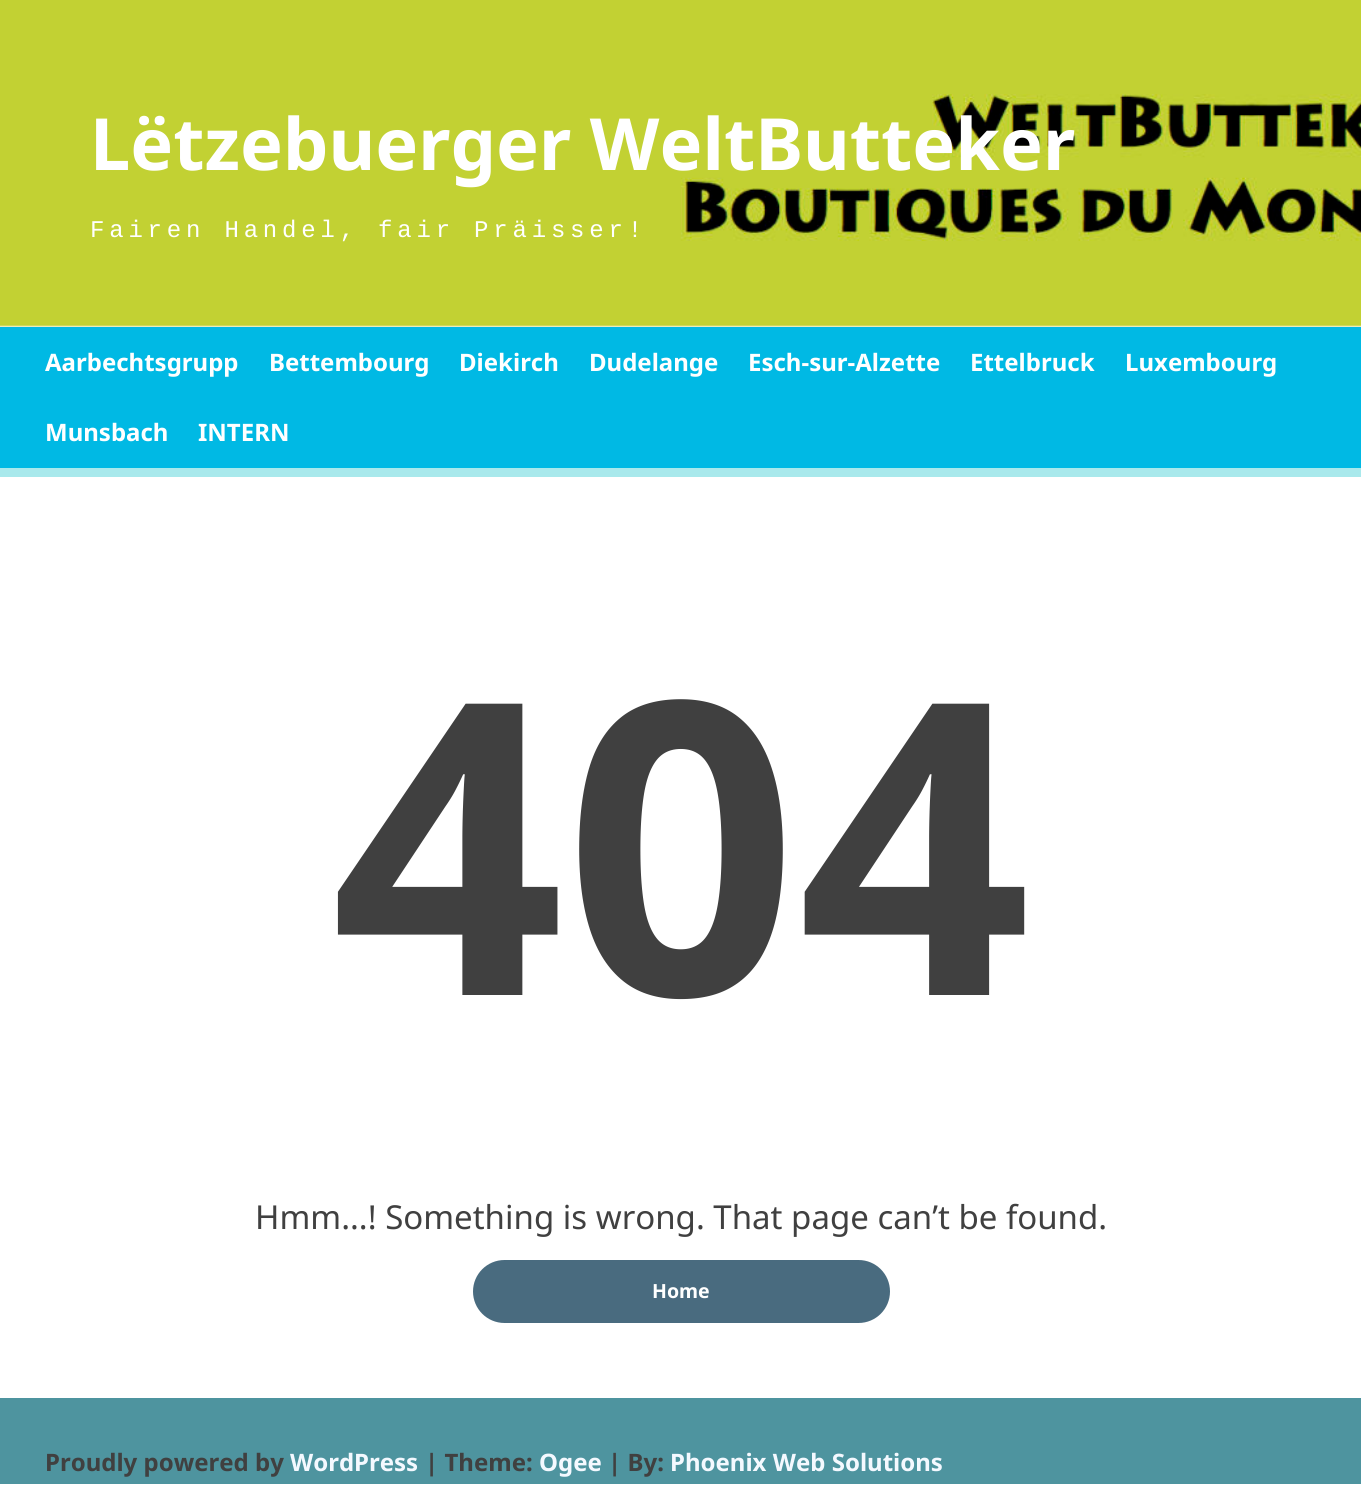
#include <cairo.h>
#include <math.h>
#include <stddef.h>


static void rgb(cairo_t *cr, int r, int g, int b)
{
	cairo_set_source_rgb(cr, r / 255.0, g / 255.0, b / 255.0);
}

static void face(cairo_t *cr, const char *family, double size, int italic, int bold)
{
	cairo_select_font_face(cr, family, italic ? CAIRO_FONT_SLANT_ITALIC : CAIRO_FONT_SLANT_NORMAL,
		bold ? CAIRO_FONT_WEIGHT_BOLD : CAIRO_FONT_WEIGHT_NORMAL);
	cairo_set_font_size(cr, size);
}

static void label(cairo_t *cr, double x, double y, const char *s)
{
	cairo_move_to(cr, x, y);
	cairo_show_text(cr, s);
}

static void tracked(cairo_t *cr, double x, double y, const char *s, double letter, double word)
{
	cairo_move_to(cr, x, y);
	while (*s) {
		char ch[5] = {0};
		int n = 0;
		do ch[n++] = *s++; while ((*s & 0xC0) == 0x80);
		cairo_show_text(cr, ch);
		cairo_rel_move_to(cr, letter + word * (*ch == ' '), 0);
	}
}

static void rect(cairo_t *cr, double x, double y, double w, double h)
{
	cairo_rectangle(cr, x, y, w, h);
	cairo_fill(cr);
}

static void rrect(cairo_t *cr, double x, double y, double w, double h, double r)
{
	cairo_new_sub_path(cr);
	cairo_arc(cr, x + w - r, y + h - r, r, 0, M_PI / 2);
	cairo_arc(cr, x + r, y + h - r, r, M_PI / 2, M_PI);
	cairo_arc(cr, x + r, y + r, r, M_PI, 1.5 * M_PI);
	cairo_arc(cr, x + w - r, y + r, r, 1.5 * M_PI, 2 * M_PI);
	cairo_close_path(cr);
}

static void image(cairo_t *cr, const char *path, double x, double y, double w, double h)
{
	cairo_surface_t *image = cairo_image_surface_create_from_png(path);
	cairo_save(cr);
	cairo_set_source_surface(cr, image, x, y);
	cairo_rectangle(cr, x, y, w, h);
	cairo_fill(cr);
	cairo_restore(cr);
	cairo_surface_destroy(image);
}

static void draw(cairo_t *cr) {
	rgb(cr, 255, 255, 255);
	cairo_paint(cr);
	image(cr, "image0.png", 0, 0, 1361, 327);
	face(cr, "Noto Sans", 72, 0, 1);
	rgb(cr, 255, 255, 255);
	label(cr, 90, 170, "Lëtzebuerger WeltButteker");
	face(cr, "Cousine", 24, 0, 0);
	tracked(cr, 90, 237, "Fairen Handel, fair Präisser!", 4.8, 0);
	rgb(cr, 0, 185, 228);
	rect(cr, 0, 327, 1361, 141);
	rgb(cr, 169, 233, 236);
	rect(cr, 0, 468, 1361, 9);
	face(cr, "Noto Sans", 24, 0, 1);
	rgb(cr, 255, 255, 255);
	label(cr, 45, 371, "Aarbechtsgrupp");
	label(cr, 269, 371, "Bettembourg");
	label(cr, 459, 371, "Diekirch");
	label(cr, 589, 371, "Dudelange");
	label(cr, 748, 371, "Esch-sur-Alzette");
	label(cr, 970, 371, "Ettelbruck");
	label(cr, 1125, 371, "Luxembourg");
	label(cr, 45, 441, "Munsbach");
	label(cr, 198, 441, "INTERN");
	face(cr, "Noto Sans", 408, 0, 1);
	rgb(cr, 64, 64, 64);
	label(cr, 331, 995, "404");
	face(cr, "Noto Sans", 33, 0, 0);
	label(cr, 255, 1229, "Hmm...! Something is wrong. That page can’t be found.");
	rgb(cr, 73, 107, 127);
	rrect(cr, 473, 1260, 417, 63, 31.5);
	cairo_fill(cr);
	face(cr, "Noto Sans", 19.5, 0, 1);
	rgb(cr, 255, 255, 255);
	label(cr, 652, 1298, "Home");
	rgb(cr, 78, 148, 159);
	rect(cr, 0, 1398, 1361, 86);
	face(cr, "Noto Sans", 24, 0, 1);
	rgb(cr, 64, 64, 64);
	label(cr, 45, 1471, "Proudly powered by");
	rgb(cr, 244, 249, 255);
	label(cr, 290, 1471, "WordPress");
	rgb(cr, 64, 64, 64);
	label(cr, 425, 1471, "| Theme:");
	rgb(cr, 244, 249, 255);
	label(cr, 539, 1471, "Ogee");
	rgb(cr, 64, 64, 64);
	label(cr, 608, 1471, "| By:");
	rgb(cr, 244, 249, 255);
	label(cr, 670, 1471, "Phoenix Web Solutions");
}

int main(void) {
	cairo_surface_t *surface = cairo_image_surface_create(CAIRO_FORMAT_RGB24, 1361, 1499);
	cairo_t *cr = cairo_create(surface);
	cairo_font_options_t *options = cairo_font_options_create();
	cairo_font_options_set_hint_metrics(options, CAIRO_HINT_METRICS_OFF);
	cairo_font_options_set_hint_style(options, CAIRO_HINT_STYLE_NONE);
	cairo_set_font_options(cr, options);
	cairo_set_miter_limit(cr, 4);
	draw(cr);
	cairo_surface_write_to_png(surface, "render.png");
	cairo_font_options_destroy(options);
	cairo_destroy(cr);
	cairo_surface_destroy(surface);
	return 0;
}
